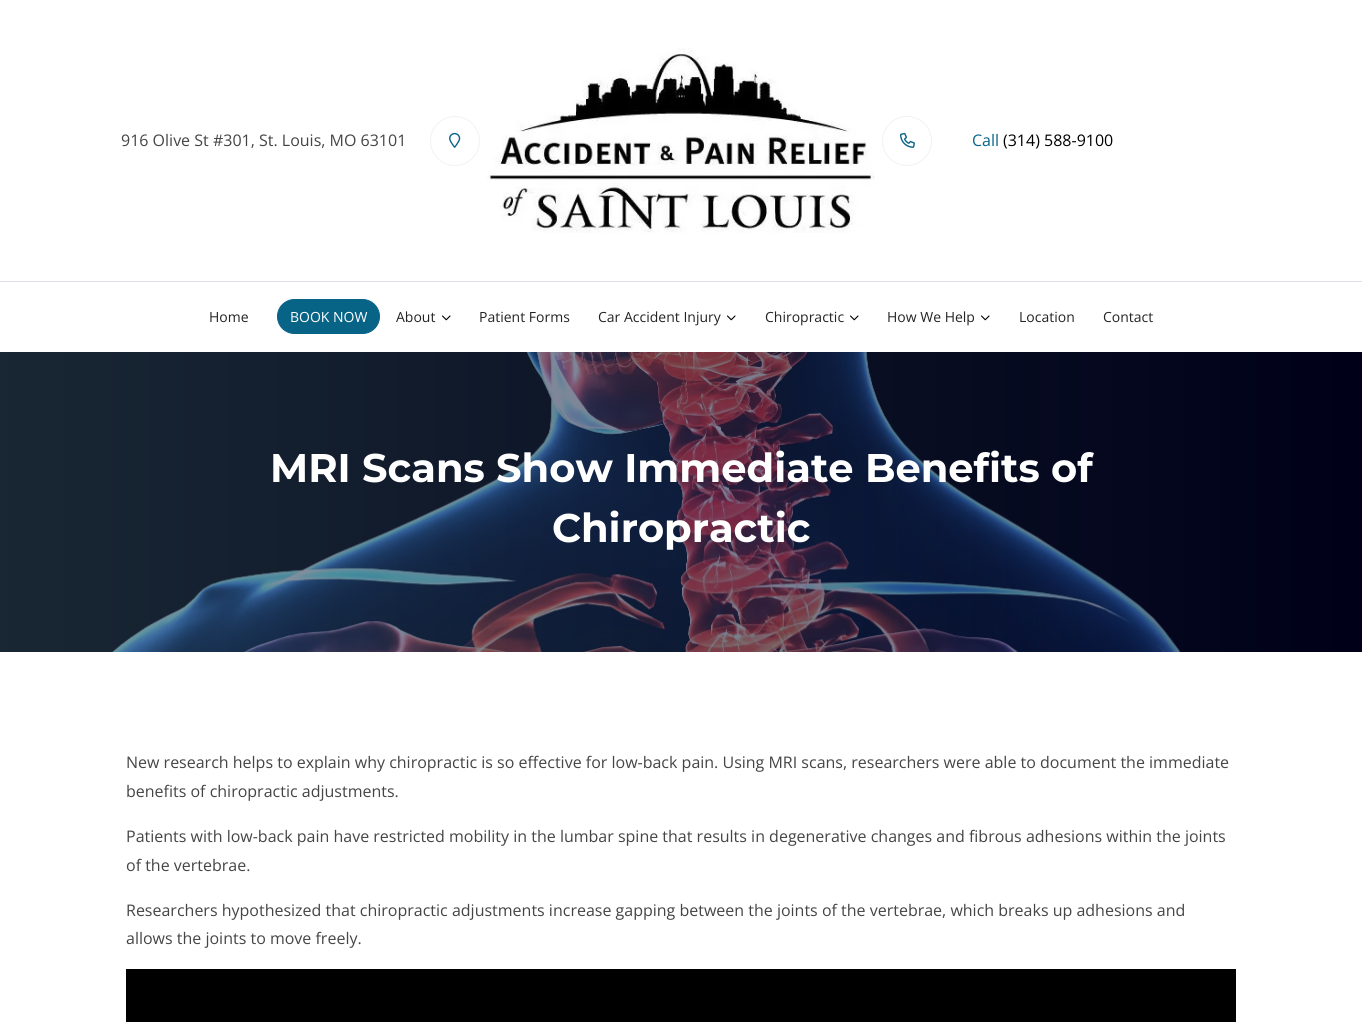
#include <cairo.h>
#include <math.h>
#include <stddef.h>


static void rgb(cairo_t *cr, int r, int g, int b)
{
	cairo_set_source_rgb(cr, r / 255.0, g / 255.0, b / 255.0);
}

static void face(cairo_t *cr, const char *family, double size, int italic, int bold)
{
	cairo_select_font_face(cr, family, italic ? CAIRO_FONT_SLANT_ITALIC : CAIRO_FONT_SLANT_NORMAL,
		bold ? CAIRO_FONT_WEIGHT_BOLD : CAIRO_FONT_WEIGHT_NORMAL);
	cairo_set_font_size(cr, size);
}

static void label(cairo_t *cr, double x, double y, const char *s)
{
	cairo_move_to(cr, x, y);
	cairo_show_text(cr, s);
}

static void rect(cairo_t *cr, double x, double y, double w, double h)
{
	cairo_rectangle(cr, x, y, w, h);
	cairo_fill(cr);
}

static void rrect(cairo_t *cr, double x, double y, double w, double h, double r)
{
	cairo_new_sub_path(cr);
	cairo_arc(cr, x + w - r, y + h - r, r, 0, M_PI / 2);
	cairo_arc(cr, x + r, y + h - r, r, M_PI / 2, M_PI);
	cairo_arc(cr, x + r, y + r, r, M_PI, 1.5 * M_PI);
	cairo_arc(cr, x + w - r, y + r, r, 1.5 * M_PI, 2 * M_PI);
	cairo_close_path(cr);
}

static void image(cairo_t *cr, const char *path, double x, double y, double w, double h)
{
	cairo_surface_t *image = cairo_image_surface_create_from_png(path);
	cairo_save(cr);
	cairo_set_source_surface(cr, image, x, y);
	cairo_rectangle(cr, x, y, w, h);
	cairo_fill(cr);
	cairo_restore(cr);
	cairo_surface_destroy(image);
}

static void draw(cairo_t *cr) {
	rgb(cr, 255, 255, 255);
	cairo_paint(cr);
	rgb(cr, 222, 226, 230);
	rect(cr, 0, 281, 1362, 1);
	face(cr, "Open Sans", 16, 0, 0);
	rgb(cr, 69, 69, 69);
	label(cr, 121, 146, "916 Olive St #301, St. Louis, MO 63101");
	cairo_new_path(cr);
	cairo_arc(cr, 455, 141, 24.5, 0, 2 * M_PI);
	rgb(cr, 242, 242, 242);
	cairo_set_line_width(cr, 1);
	cairo_stroke(cr);
	image(cr, "image0.png", 449, 132, 12, 16);
	image(cr, "image1.png", 487, 48, 388, 185);
	cairo_arc(cr, 907, 141, 24.5, 0, 2 * M_PI);
	cairo_stroke(cr);
	image(cr, "image2.png", 900, 132, 15, 16);
	rgb(cr, 8, 100, 135);
	label(cr, 972, 146, "Call");
	rgb(cr, 0, 0, 0);
	label(cr, 1003, 146, "(314) 588-9100");
	face(cr, "Open Sans", 14, 0, 0);
	rgb(cr, 35, 35, 35);
	label(cr, 209, 322, "Home");
	rgb(cr, 8, 100, 135);
	rrect(cr, 277.5, 299.5, 102, 34, 17);
	cairo_fill_preserve(cr);
	cairo_stroke(cr);
	rgb(cr, 255, 255, 255);
	label(cr, 290, 322, "BOOK NOW");
	rgb(cr, 35, 35, 35);
	label(cr, 396, 322, "About");
	image(cr, "image3.png", 442, 315, 9, 6);
	label(cr, 479, 322, "Patient Forms");
	label(cr, 598, 322, "Car Accident Injury");
	image(cr, "image3.png", 727, 315, 9, 6);
	label(cr, 765, 322, "Chiropractic");
	image(cr, "image3.png", 850, 315, 9, 6);
	label(cr, 887, 322, "How We Help");
	image(cr, "image3.png", 981, 315, 9, 6);
	label(cr, 1019, 322, "Location");
	label(cr, 1103, 322, "Contact");
	image(cr, "image4.png", 0, 352, 1362, 300);
	face(cr, "Montserrat Thin", 40, 0, 0);
	rgb(cr, 255, 255, 255);
	label(cr, 270, 482, "MRI Scans Show Immediate Benefits of");
	label(cr, 552, 542, "Chiropractic");
	face(cr, "Open Sans", 16, 0, 0);
	rgb(cr, 69, 69, 69);
	label(cr, 126, 768, "New research helps to explain why chiropractic is so effective for low-back pain. Using MRI scans, researchers were able to document the immediate");
	label(cr, 126, 797, "benefits of chiropractic adjustments.");
	label(cr, 126, 842, "Patients with low-back pain have restricted mobility in the lumbar spine that results in degenerative changes and fibrous adhesions within the joints");
	label(cr, 126, 871, "of the vertebrae.");
	label(cr, 126, 916, "Researchers hypothesized that chiropractic adjustments increase gapping between the joints of the vertebrae, which breaks up adhesions and");
	label(cr, 126, 944, "allows the joints to move freely.");
	rgb(cr, 0, 0, 0);
	rect(cr, 126, 969, 1110, 53);
}

int main(void) {
	cairo_surface_t *surface = cairo_image_surface_create(CAIRO_FORMAT_RGB24, 1362, 1022);
	cairo_t *cr = cairo_create(surface);
	cairo_font_options_t *options = cairo_font_options_create();
	cairo_font_options_set_hint_metrics(options, CAIRO_HINT_METRICS_OFF);
	cairo_font_options_set_hint_style(options, CAIRO_HINT_STYLE_NONE);
	cairo_set_font_options(cr, options);
	cairo_set_miter_limit(cr, 4);
	draw(cr);
	cairo_surface_write_to_png(surface, "render.png");
	cairo_font_options_destroy(options);
	cairo_destroy(cr);
	cairo_surface_destroy(surface);
	return 0;
}
